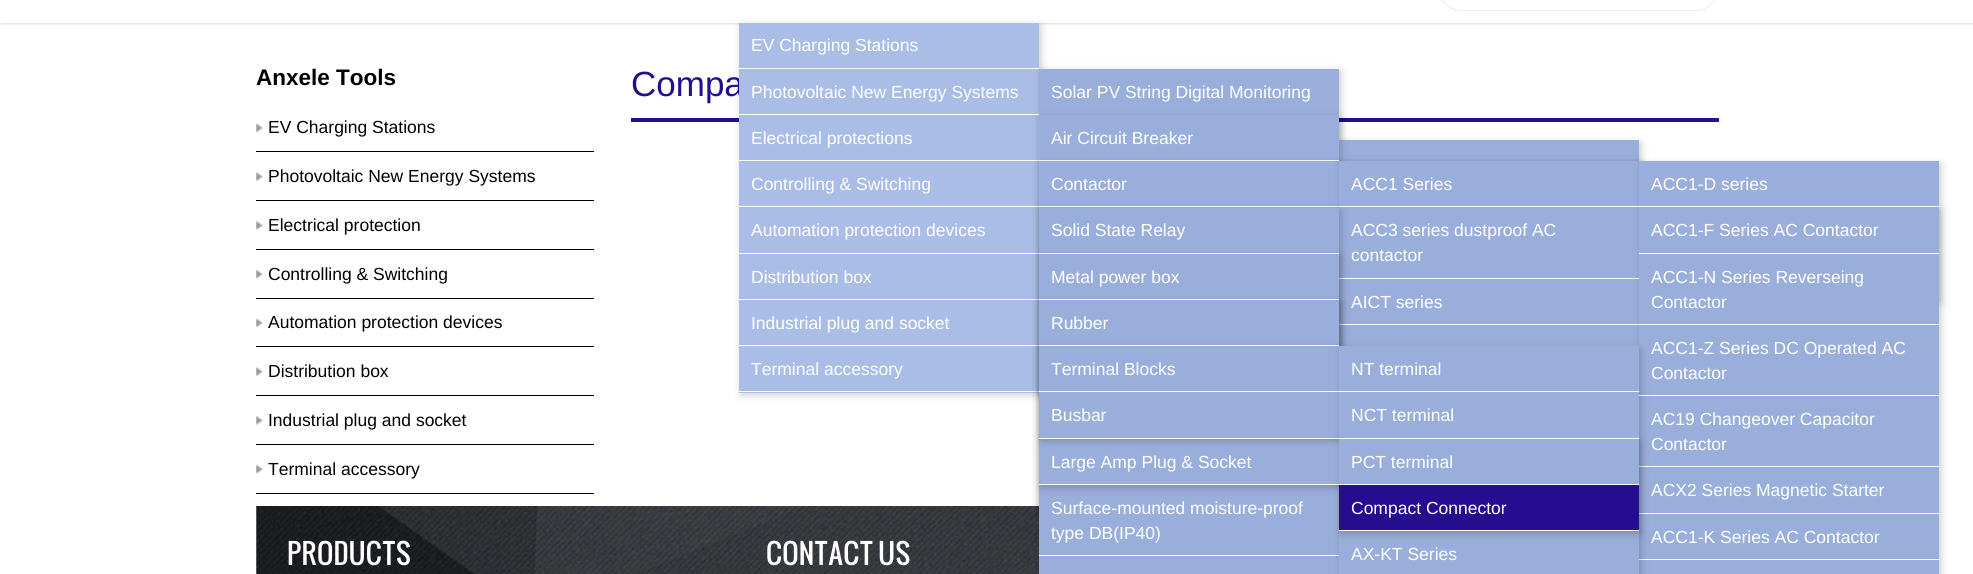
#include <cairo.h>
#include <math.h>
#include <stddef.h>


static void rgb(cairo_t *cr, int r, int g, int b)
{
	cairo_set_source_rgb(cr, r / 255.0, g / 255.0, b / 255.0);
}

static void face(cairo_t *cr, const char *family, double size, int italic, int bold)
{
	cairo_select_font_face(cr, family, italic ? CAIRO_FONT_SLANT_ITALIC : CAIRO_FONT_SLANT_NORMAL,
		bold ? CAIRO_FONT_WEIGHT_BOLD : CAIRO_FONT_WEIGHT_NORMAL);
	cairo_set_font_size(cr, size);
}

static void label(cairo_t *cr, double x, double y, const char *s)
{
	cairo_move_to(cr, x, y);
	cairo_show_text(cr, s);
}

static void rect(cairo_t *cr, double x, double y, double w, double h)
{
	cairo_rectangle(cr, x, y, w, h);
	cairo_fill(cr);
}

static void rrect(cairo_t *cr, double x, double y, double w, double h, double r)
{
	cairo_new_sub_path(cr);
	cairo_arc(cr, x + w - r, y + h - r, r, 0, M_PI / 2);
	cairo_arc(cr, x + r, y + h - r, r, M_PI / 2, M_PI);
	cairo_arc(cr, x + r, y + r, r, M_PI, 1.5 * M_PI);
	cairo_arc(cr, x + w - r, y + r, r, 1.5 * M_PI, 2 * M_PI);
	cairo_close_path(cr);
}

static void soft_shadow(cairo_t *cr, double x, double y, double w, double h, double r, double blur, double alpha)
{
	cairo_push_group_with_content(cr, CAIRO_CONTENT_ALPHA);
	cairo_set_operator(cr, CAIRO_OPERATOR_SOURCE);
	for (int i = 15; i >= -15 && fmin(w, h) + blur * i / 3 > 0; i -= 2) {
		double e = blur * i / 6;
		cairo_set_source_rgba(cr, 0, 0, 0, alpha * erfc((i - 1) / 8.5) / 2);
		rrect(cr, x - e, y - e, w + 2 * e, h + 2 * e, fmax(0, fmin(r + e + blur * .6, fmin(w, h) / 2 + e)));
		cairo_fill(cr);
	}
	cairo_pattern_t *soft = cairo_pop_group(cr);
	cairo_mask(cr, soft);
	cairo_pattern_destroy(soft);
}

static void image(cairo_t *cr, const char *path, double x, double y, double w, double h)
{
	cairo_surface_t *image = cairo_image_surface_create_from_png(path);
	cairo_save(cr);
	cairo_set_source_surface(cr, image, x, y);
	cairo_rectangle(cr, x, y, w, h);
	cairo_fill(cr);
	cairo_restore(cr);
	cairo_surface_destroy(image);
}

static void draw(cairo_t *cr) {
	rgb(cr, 255, 255, 255);
	cairo_paint(cr);
	face(cr, "Liberation Sans", 22.5, 0, 1);
	rgb(cr, 0, 0, 0);
	label(cr, 256, 85, "Anxele Tools");
	image(cr, "image0.png", 256, 123, 7, 10);
	rect(cr, 256, 151, 338, 1);
	face(cr, "Liberation Sans", 17.5, 0, 0);
	label(cr, 268, 133, "EV Charging Stations");
	image(cr, "image1.png", 256, 172, 7, 9);
	rect(cr, 256, 200, 338, 1);
	label(cr, 268, 182, "Photovoltaic New Energy Systems");
	image(cr, "image2.png", 256, 221, 7, 9);
	rect(cr, 256, 249, 338, 1);
	label(cr, 268, 231, "Electrical protection");
	image(cr, "image3.png", 256, 269, 7, 10);
	rect(cr, 256, 298, 338, 1);
	label(cr, 268, 280, "Controlling & Switching");
	image(cr, "image0.png", 256, 318, 7, 10);
	rect(cr, 256, 346, 338, 1);
	label(cr, 268, 328, "Automation protection devices");
	image(cr, "image1.png", 256, 367, 7, 9);
	rect(cr, 256, 395, 338, 1);
	label(cr, 268, 377, "Distribution box");
	image(cr, "image2.png", 256, 416, 7, 9);
	rect(cr, 256, 444, 338, 1);
	label(cr, 268, 426, "Industrial plug and socket");
	image(cr, "image3.png", 256, 464, 7, 10);
	rect(cr, 256, 493, 338, 1);
	label(cr, 268, 475, "Terminal accessory");
	rgb(cr, 36, 13, 143);
	rect(cr, 631, 118, 1088, 4);
	face(cr, "Liberation Sans", 35, 0, 0);
	label(cr, 631, 96, "Compa");
	cairo_save(cr);
	cairo_set_fill_rule(cr, CAIRO_FILL_RULE_EVEN_ODD);
	cairo_new_path(cr);
	cairo_move_to(cr, 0, 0);
	cairo_line_to(cr, 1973, 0);
	cairo_line_to(cr, 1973, 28);
	cairo_line_to(cr, 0, 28);
	cairo_close_path(cr);
	cairo_move_to(cr, 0, -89);
	cairo_line_to(cr, 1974, -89);
	cairo_line_to(cr, 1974, 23);
	cairo_line_to(cr, 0, 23);
	cairo_close_path(cr);
	cairo_clip(cr);
	rgb(cr, 221, 221, 221);
	soft_shadow(cr, 1, -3, 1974, 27, 0, 1, 1);
	cairo_restore(cr);
	rrect(cr, 1438.5, -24.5, 280, 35, 23);
	rgb(cr, 235, 235, 235);
	cairo_set_line_width(cr, 1);
	cairo_stroke(cr);
	rgb(cr, 0, 0, 0);
	soft_shadow(cr, 741, 25, 300, 370, 0, 4, 0.2);
	rgb(cr, 170, 189, 230);
	rect(cr, 739, 23, 300, 45);
	rgb(cr, 255, 255, 255);
	rect(cr, 739, 68, 300, 1);
	face(cr, "Liberation Sans", 17.5, 0, 0);
	label(cr, 751, 51, "EV Charging Stations");
	rgb(cr, 170, 189, 230);
	rect(cr, 739, 69, 300, 45);
	rgb(cr, 255, 255, 255);
	rect(cr, 739, 114, 300, 1);
	label(cr, 751, 98, "Photovoltaic New Energy Systems");
	rgb(cr, 170, 189, 230);
	rect(cr, 739, 115, 300, 45);
	rgb(cr, 255, 255, 255);
	rect(cr, 739, 160, 300, 1);
	rgb(cr, 170, 189, 230);
	rect(cr, 739, 161, 300, 92);
	rgb(cr, 255, 255, 255);
	rect(cr, 739, 206, 300, 1);
	rect(cr, 739, 253, 300, 1);
	rgb(cr, 170, 189, 230);
	rect(cr, 739, 254, 300, 45);
	rgb(cr, 255, 255, 255);
	rect(cr, 739, 299, 300, 1);
	rgb(cr, 170, 189, 230);
	rect(cr, 739, 300, 300, 45);
	rgb(cr, 255, 255, 255);
	rect(cr, 739, 345, 300, 1);
	rgb(cr, 170, 189, 230);
	rect(cr, 739, 346, 300, 47);
	rgb(cr, 255, 255, 255);
	rect(cr, 739, 391, 300, 1);
	image(cr, "image4.png", 256, 506, 783, 68);
	rgb(cr, 0, 0, 0);
	soft_shadow(cr, 1041, 71, 300, 442, 0, 4, 0.2);
	rgb(cr, 154, 174, 219);
	rect(cr, 1039, 69, 300, 46);
	rgb(cr, 255, 255, 255);
	label(cr, 1051, 98, "Solar PV String Digital Monitoring");
	rgb(cr, 0, 0, 0);
	soft_shadow(cr, 1341, 143, 300, 277, 0, 4, 0.2);
	rgb(cr, 154, 174, 219);
	rect(cr, 1339, 140, 300, 21);
	rgb(cr, 255, 255, 255);
	label(cr, 751, 144, "Electrical protections");
	rgb(cr, 0, 0, 0);
	soft_shadow(cr, 1041, 118, 300, 398, 0, 4, 0.2);
	rgb(cr, 154, 174, 219);
	rect(cr, 1039, 115, 300, 45);
	rgb(cr, 255, 255, 255);
	rect(cr, 1039, 160, 300, 1);
	label(cr, 1051, 144, "Air Circuit Breaker");
	rgb(cr, 0, 0, 0);
	soft_shadow(cr, 1341, 164, 300, 185, 0, 4, 0.2);
	soft_shadow(cr, 1641, 210, 300, 93, 0, 4, 0.2);
	rgb(cr, 255, 255, 255);
	label(cr, 751, 190, "Controlling & Switching");
	rgb(cr, 0, 0, 0);
	soft_shadow(cr, 1041, 164, 300, 231, 0, 4, 0.2);
	rgb(cr, 154, 174, 219);
	rect(cr, 1039, 161, 300, 47);
	rgb(cr, 255, 255, 255);
	rect(cr, 1039, 206, 300, 1);
	label(cr, 1051, 190, "Contactor");
	rgb(cr, 0, 0, 0);
	soft_shadow(cr, 1341, 164, 300, 256, 0, 4, 0.2);
	rgb(cr, 154, 174, 219);
	rect(cr, 1339, 161, 300, 117);
	rgb(cr, 255, 255, 255);
	rect(cr, 1339, 206, 300, 1);
	label(cr, 1351, 190, "ACC1 Series");
	rect(cr, 1339, 278, 300, 1);
	rgb(cr, 154, 174, 219);
	rect(cr, 1339, 279, 300, 45);
	rgb(cr, 255, 255, 255);
	rect(cr, 1339, 324, 300, 1);
	rgb(cr, 154, 174, 219);
	rect(cr, 1339, 325, 300, 21);
	rgb(cr, 0, 0, 0);
	soft_shadow(cr, 1641, 164, 300, 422, 0, 4, 0.2);
	rgb(cr, 154, 174, 219);
	rect(cr, 1639, 161, 300, 92);
	rgb(cr, 255, 255, 255);
	rect(cr, 1639, 206, 300, 1);
	label(cr, 1651, 190, "ACC1-D series");
	rect(cr, 1639, 253, 300, 1);
	label(cr, 1651, 236, "ACC1-F Series AC Contactor");
	rgb(cr, 154, 174, 219);
	rect(cr, 1639, 254, 300, 70);
	rgb(cr, 255, 255, 255);
	rect(cr, 1639, 324, 300, 1);
	label(cr, 1651, 283, "ACC1-N Series Reverseing");
	label(cr, 1651, 308, "Contactor");
	rgb(cr, 154, 174, 219);
	rect(cr, 1639, 325, 300, 70);
	rgb(cr, 255, 255, 255);
	rect(cr, 1639, 395, 300, 1);
	label(cr, 1651, 354, "ACC1-Z Series DC Operated AC");
	label(cr, 1651, 379, "Contactor");
	rgb(cr, 154, 174, 219);
	rect(cr, 1639, 396, 300, 117);
	rgb(cr, 255, 255, 255);
	rect(cr, 1639, 466, 300, 1);
	label(cr, 1651, 425, "AC19 Changeover Capacitor");
	label(cr, 1651, 450, "Contactor");
	rect(cr, 1639, 513, 300, 1);
	label(cr, 1651, 496, "ACX2 Series Magnetic Starter");
	rgb(cr, 154, 174, 219);
	rect(cr, 1639, 514, 300, 45);
	rgb(cr, 255, 255, 255);
	rect(cr, 1639, 559, 300, 1);
	label(cr, 1651, 543, "ACC1-K Series AC Contactor");
	rgb(cr, 154, 174, 219);
	rect(cr, 1639, 560, 300, 14);
	rgb(cr, 255, 255, 255);
	label(cr, 1351, 236, "ACC3 series dustproof AC");
	label(cr, 1351, 261, "contactor");
	label(cr, 1351, 308, "AICT series");
	label(cr, 751, 236, "Automation protection devices");
	rgb(cr, 0, 0, 0);
	soft_shadow(cr, 1041, 210, 300, 324, 0, 4, 0.2);
	rgb(cr, 154, 174, 219);
	rect(cr, 1039, 208, 300, 45);
	rgb(cr, 255, 255, 255);
	rect(cr, 1039, 253, 300, 1);
	label(cr, 1051, 236, "Solid State Relay");
	label(cr, 751, 283, "Distribution box");
	rgb(cr, 0, 0, 0);
	soft_shadow(cr, 1041, 256, 300, 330, 0, 4, 0.2);
	rgb(cr, 154, 174, 219);
	rect(cr, 1039, 254, 300, 45);
	rgb(cr, 255, 255, 255);
	rect(cr, 1039, 299, 300, 1);
	label(cr, 1051, 283, "Metal power box");
	rgb(cr, 154, 174, 219);
	rect(cr, 1039, 485, 300, 70);
	rgb(cr, 255, 255, 255);
	rect(cr, 1039, 555, 300, 1);
	label(cr, 1051, 514, "Surface-mounted moisture-proof");
	label(cr, 1051, 539, "type DB(IP40)");
	rgb(cr, 154, 174, 219);
	rect(cr, 1039, 556, 300, 18);
	rgb(cr, 0, 0, 0);
	soft_shadow(cr, 1341, 441, 300, 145, 0, 4, 0.2);
	rgb(cr, 154, 174, 219);
	rect(cr, 1339, 531, 300, 43);
	rgb(cr, 255, 255, 255);
	label(cr, 1351, 560, "AX-KT Series");
	label(cr, 751, 329, "Industrial plug and socket");
	rgb(cr, 0, 0, 0);
	soft_shadow(cr, 1041, 303, 300, 185, 0, 4, 0.2);
	rgb(cr, 154, 174, 219);
	rect(cr, 1039, 300, 300, 45);
	rgb(cr, 255, 255, 255);
	rect(cr, 1039, 345, 300, 1);
	label(cr, 1051, 329, "Rubber");
	rgb(cr, 154, 174, 219);
	rect(cr, 1039, 439, 300, 45);
	rgb(cr, 255, 255, 255);
	rect(cr, 1039, 484, 300, 1);
	label(cr, 1051, 468, "Large Amp Plug & Socket");
	label(cr, 751, 375, "Terminal accessory");
	rgb(cr, 0, 0, 0);
	soft_shadow(cr, 1041, 349, 300, 92, 0, 4, 0.2);
	rgb(cr, 154, 174, 219);
	rect(cr, 1039, 346, 300, 92);
	rgb(cr, 255, 255, 255);
	rect(cr, 1039, 391, 300, 1);
	label(cr, 1051, 375, "Terminal Blocks");
	rect(cr, 1039, 438, 300, 1);
	rgb(cr, 0, 0, 0);
	soft_shadow(cr, 1341, 349, 300, 185, 0, 4, 0.2);
	rgb(cr, 154, 174, 219);
	rect(cr, 1339, 346, 300, 92);
	rgb(cr, 255, 255, 255);
	rect(cr, 1339, 391, 300, 1);
	label(cr, 1351, 375, "NT terminal");
	rect(cr, 1339, 438, 300, 1);
	label(cr, 1351, 421, "NCT terminal");
	rgb(cr, 154, 174, 219);
	rect(cr, 1339, 439, 300, 45);
	rgb(cr, 255, 255, 255);
	rect(cr, 1339, 484, 300, 1);
	label(cr, 1351, 468, "PCT terminal");
	rgb(cr, 36, 13, 143);
	rect(cr, 1339, 485, 300, 45);
	rgb(cr, 255, 255, 255);
	rect(cr, 1339, 530, 300, 1);
	label(cr, 1351, 514, "Compact Connector");
	label(cr, 1051, 421, "Busbar");
	face(cr, "Oswald", 27.5, 0, 0);
	label(cr, 287, 565, "PRODUCTS");
	label(cr, 766, 565, "CONTACT US");
}

int main(void) {
	cairo_surface_t *surface = cairo_image_surface_create(CAIRO_FORMAT_RGB24, 1973, 574);
	cairo_t *cr = cairo_create(surface);
	cairo_font_options_t *options = cairo_font_options_create();
	cairo_font_options_set_hint_metrics(options, CAIRO_HINT_METRICS_OFF);
	cairo_font_options_set_hint_style(options, CAIRO_HINT_STYLE_NONE);
	cairo_set_font_options(cr, options);
	cairo_set_miter_limit(cr, 4);
	draw(cr);
	cairo_surface_write_to_png(surface, "render.png");
	cairo_font_options_destroy(options);
	cairo_destroy(cr);
	cairo_surface_destroy(surface);
	return 0;
}
